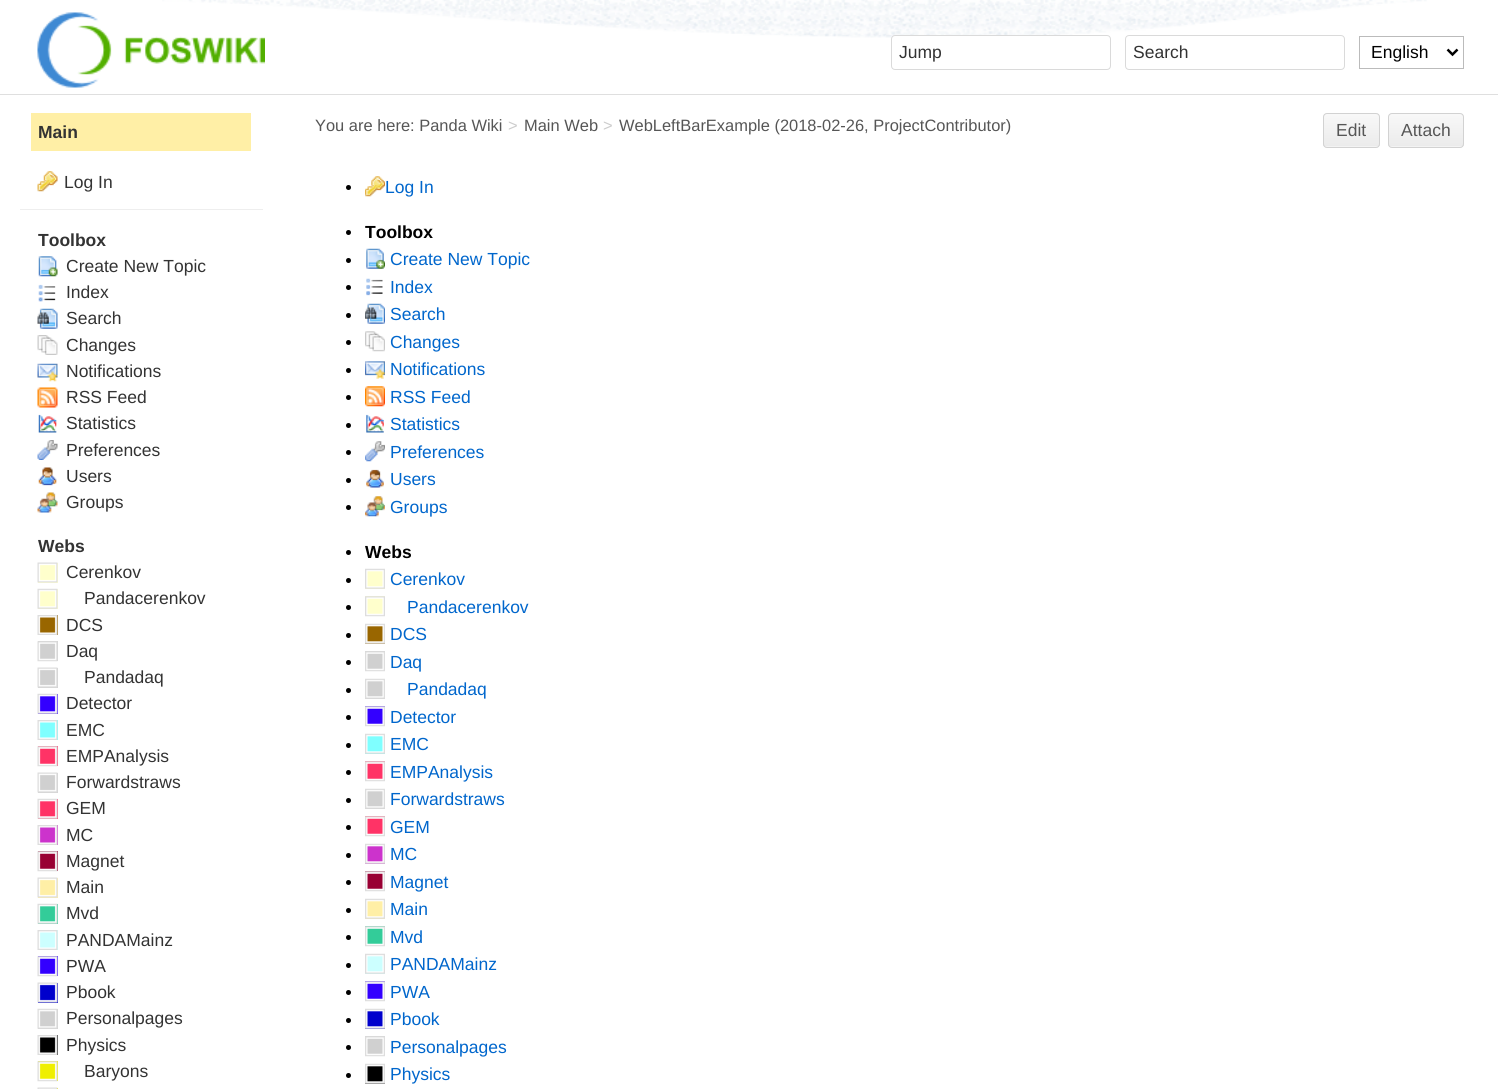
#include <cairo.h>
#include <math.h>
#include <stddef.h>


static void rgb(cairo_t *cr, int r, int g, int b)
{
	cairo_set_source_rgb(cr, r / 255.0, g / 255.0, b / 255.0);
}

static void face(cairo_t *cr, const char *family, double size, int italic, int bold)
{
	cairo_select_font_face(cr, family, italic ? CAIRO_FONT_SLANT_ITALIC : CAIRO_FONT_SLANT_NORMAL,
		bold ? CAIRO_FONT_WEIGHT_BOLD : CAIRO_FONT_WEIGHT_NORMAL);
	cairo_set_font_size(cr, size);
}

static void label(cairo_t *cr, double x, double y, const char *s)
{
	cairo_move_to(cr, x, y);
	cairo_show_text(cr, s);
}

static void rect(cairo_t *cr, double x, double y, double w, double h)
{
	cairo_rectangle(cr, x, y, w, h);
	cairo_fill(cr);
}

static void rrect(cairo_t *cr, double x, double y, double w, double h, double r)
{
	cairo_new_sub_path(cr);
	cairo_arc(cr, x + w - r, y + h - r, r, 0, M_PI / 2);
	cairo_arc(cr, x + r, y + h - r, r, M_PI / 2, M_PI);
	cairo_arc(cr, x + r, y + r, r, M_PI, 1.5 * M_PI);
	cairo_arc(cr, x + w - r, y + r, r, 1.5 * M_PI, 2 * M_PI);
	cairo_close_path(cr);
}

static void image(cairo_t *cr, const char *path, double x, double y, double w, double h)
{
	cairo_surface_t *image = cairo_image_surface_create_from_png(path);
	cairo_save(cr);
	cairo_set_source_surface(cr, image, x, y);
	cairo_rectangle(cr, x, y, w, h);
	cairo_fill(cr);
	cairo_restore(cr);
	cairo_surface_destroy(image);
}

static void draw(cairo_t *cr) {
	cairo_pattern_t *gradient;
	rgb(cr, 223, 223, 223);
	cairo_paint(cr);
	rgb(cr, 255, 255, 255);
	rect(cr, 0, 0, 1498, 94);
	image(cr, "image0.png", 162, 0, 1265, 38);
	image(cr, "image1.png", 37, 12, 228, 76);
	rrect(cr, 891.5, 35.5, 219, 34, 3.5);
	cairo_fill_preserve(cr);
	rgb(cr, 218, 218, 218);
	cairo_set_line_width(cr, 1);
	cairo_stroke(cr);
	face(cr, "Liberation Sans", 17.5, 0, 0);
	rgb(cr, 51, 51, 51);
	label(cr, 899, 58, "Jump");
	rrect(cr, 1125.5, 35.5, 219, 34, 3.5);
	rgb(cr, 218, 218, 218);
	cairo_stroke(cr);
	rgb(cr, 51, 51, 51);
	label(cr, 1133, 58, "Search");
	cairo_rectangle(cr, 1359.5, 36.5, 104, 32);
	rgb(cr, 187, 187, 187);
	cairo_stroke(cr);
	cairo_new_path(cr);
	cairo_move_to(cr, 1447.5, 49.5);
	cairo_line_to(cr, 1452.5, 54.5);
	cairo_line_to(cr, 1457.5, 49.5);
	rgb(cr, 0, 0, 0);
	cairo_set_line_width(cr, 2.5);
	cairo_stroke(cr);
	label(cr, 1371, 58, "English");
	rgb(cr, 255, 255, 255);
	rect(cr, 0, 95, 1498, 994);
	rgb(cr, 255, 239, 166);
	rect(cr, 31, 113, 220, 38);
	face(cr, "Liberation Sans", 17.5, 0, 1);
	rgb(cr, 51, 51, 51);
	label(cr, 38, 138, "Main");
	rgb(cr, 238, 238, 238);
	rect(cr, 20, 209, 243, 1);
	image(cr, "image2.png", 37, 171, 21, 21);
	face(cr, "Liberation Sans", 17.5, 0, 0);
	rgb(cr, 51, 51, 51);
	label(cr, 64, 188, "Log In");
	face(cr, "Liberation Sans", 17.5, 0, 1);
	label(cr, 38, 246, "Toolbox");
	image(cr, "image3.png", 38, 256, 20, 21);
	face(cr, "Liberation Sans", 17.5, 0, 0);
	label(cr, 66, 272, "Create New Topic");
	image(cr, "image4.png", 38, 284, 18, 18);
	label(cr, 66, 298, "Index");
	image(cr, "image5.png", 37, 308, 21, 21);
	label(cr, 66, 324, "Search");
	image(cr, "image6.png", 37, 335, 21, 20);
	label(cr, 66, 351, "Changes");
	image(cr, "image7.png", 37, 363, 21, 19);
	label(cr, 66, 377, "Notifications");
	image(cr, "image8.png", 37, 387, 21, 21);
	label(cr, 66, 403, "RSS Feed");
	image(cr, "image9.png", 38, 414, 19, 19);
	label(cr, 66, 429, "Statistics");
	image(cr, "image10.png", 37, 440, 21, 20);
	label(cr, 66, 456, "Preferences");
	image(cr, "image11.png", 38, 467, 19, 19);
	label(cr, 66, 482, "Users");
	image(cr, "image12.png", 37, 492, 21, 21);
	label(cr, 66, 508, "Groups");
	face(cr, "Liberation Sans", 17.5, 0, 1);
	label(cr, 38, 552, "Webs");
	rgb(cr, 255, 255, 204);
	rect(cr, 38, 563, 20, 20);
	image(cr, "image13.png", 37, 562, 21, 21);
	face(cr, "Liberation Sans", 17.5, 0, 0);
	rgb(cr, 51, 51, 51);
	label(cr, 66, 578, "Cerenkov");
	rgb(cr, 255, 255, 204);
	rect(cr, 38, 589, 20, 20);
	image(cr, "image14.png", 37, 588, 21, 21);
	rgb(cr, 51, 51, 51);
	label(cr, 84, 604, "Pandacerenkov");
	rgb(cr, 153, 102, 0);
	rect(cr, 39, 615, 19, 20);
	image(cr, "image15.png", 37, 615, 21, 20);
	rgb(cr, 51, 51, 51);
	label(cr, 66, 631, "DCS");
	rgb(cr, 208, 208, 208);
	rect(cr, 38, 641, 20, 20);
	image(cr, "image16.png", 37, 641, 21, 21);
	rgb(cr, 51, 51, 51);
	label(cr, 66, 657, "Daq");
	rgb(cr, 208, 208, 208);
	rect(cr, 38, 668, 20, 20);
	image(cr, "image17.png", 37, 667, 21, 21);
	rgb(cr, 51, 51, 51);
	label(cr, 84, 683, "Pandadaq");
	rgb(cr, 51, 0, 255);
	rect(cr, 38, 694, 20, 20);
	image(cr, "image18.png", 37, 693, 21, 21);
	rgb(cr, 51, 51, 51);
	label(cr, 66, 709, "Detector");
	rgb(cr, 127, 255, 255);
	rect(cr, 39, 720, 19, 20);
	image(cr, "image19.png", 37, 720, 21, 20);
	rgb(cr, 51, 51, 51);
	label(cr, 66, 736, "EMC");
	rgb(cr, 255, 51, 102);
	rect(cr, 38, 746, 20, 20);
	image(cr, "image20.png", 37, 746, 21, 21);
	rgb(cr, 51, 51, 51);
	label(cr, 66, 762, "EMPAnalysis");
	rgb(cr, 208, 208, 208);
	rect(cr, 38, 773, 20, 20);
	image(cr, "image17.png", 37, 772, 21, 21);
	rgb(cr, 51, 51, 51);
	label(cr, 66, 788, "Forwardstraws");
	rgb(cr, 255, 51, 102);
	rect(cr, 38, 799, 20, 20);
	image(cr, "image21.png", 37, 798, 21, 21);
	rgb(cr, 51, 51, 51);
	label(cr, 66, 814, "GEM");
	rgb(cr, 204, 51, 204);
	rect(cr, 39, 825, 19, 20);
	image(cr, "image22.png", 37, 825, 21, 20);
	rgb(cr, 51, 51, 51);
	label(cr, 66, 841, "MC");
	rgb(cr, 153, 0, 51);
	rect(cr, 38, 851, 20, 20);
	image(cr, "image23.png", 37, 851, 21, 21);
	rgb(cr, 51, 51, 51);
	label(cr, 66, 867, "Magnet");
	rgb(cr, 255, 239, 166);
	rect(cr, 38, 878, 20, 20);
	image(cr, "image24.png", 37, 877, 21, 21);
	rgb(cr, 51, 51, 51);
	label(cr, 66, 893, "Main");
	rgb(cr, 51, 204, 153);
	rect(cr, 38, 904, 20, 20);
	image(cr, "image25.png", 37, 903, 21, 21);
	rgb(cr, 51, 51, 51);
	label(cr, 66, 919, "Mvd");
	rgb(cr, 204, 255, 255);
	rect(cr, 39, 930, 19, 20);
	image(cr, "image26.png", 37, 930, 21, 20);
	rgb(cr, 51, 51, 51);
	label(cr, 66, 946, "PANDAMainz");
	rgb(cr, 51, 0, 255);
	rect(cr, 38, 956, 20, 20);
	image(cr, "image27.png", 37, 956, 21, 21);
	rgb(cr, 51, 51, 51);
	label(cr, 66, 972, "PWA");
	rgb(cr, 0, 0, 204);
	rect(cr, 38, 983, 20, 20);
	image(cr, "image28.png", 37, 982, 21, 21);
	rgb(cr, 51, 51, 51);
	label(cr, 66, 998, "Pbook");
	rgb(cr, 208, 208, 208);
	rect(cr, 38, 1009, 20, 20);
	image(cr, "image29.png", 37, 1008, 21, 21);
	rgb(cr, 51, 51, 51);
	label(cr, 66, 1024, "Personalpages");
	rgb(cr, 0, 0, 0);
	rect(cr, 39, 1035, 19, 20);
	image(cr, "image30.png", 37, 1035, 21, 20);
	rgb(cr, 51, 51, 51);
	label(cr, 66, 1051, "Physics");
	rgb(cr, 239, 239, 0);
	rect(cr, 38, 1061, 20, 20);
	image(cr, "image31.png", 37, 1061, 21, 21);
	rgb(cr, 51, 51, 51);
	label(cr, 84, 1077, "Baryons");
	rgb(cr, 239, 239, 0);
	rect(cr, 57, 1088, 1, 1);
	image(cr, "image32.png", 37, 1087, 21, 2);
	face(cr, "Liberation Sans", 16.45, 0, 0);
	rgb(cr, 86, 86, 86);
	label(cr, 315, 131, "You are here: Panda Wiki");
	rgb(cr, 204, 204, 204);
	label(cr, 508, 131, ">");
	rgb(cr, 86, 86, 86);
	label(cr, 524, 131, "Main Web");
	rgb(cr, 204, 204, 204);
	label(cr, 603, 131, ">");
	rgb(cr, 86, 86, 86);
	label(cr, 619, 131, "WebLeftBarExample (2018-02-26, ProjectContributor)");
	rgb(cr, 243, 243, 243);
	rrect(cr, 1323, 113, 57, 35, 4);
	cairo_fill(cr);
	cairo_save(cr);
	rrect(cr, 1323, 113, 57, 35, 4);
	cairo_clip(cr);
	gradient = cairo_pattern_create_linear(1351, 114, 1351, 146);
	cairo_pattern_add_color_stop_rgba(gradient, 0, 0.973, 0.973, 0.973, 1);
	cairo_pattern_add_color_stop_rgba(gradient, 1, 0.922, 0.922, 0.922, 1);
	cairo_set_source(cr, gradient);
	cairo_pattern_destroy(gradient);
	rect(cr, 1323, 114, 57, 32);
	cairo_restore(cr);
	rrect(cr, 1323.5, 113.5, 56, 34, 3.5);
	rgb(cr, 210, 210, 210);
	cairo_set_line_width(cr, 1);
	cairo_stroke(cr);
	face(cr, "Liberation Sans", 17.5, 0, 0);
	rgb(cr, 86, 86, 86);
	label(cr, 1336, 136, "Edit");
	rgb(cr, 243, 243, 243);
	rrect(cr, 1388, 113, 76, 35, 4);
	cairo_fill(cr);
	cairo_save(cr);
	rrect(cr, 1388, 113, 76, 35, 4);
	cairo_clip(cr);
	gradient = cairo_pattern_create_linear(1426, 114, 1426, 146);
	cairo_pattern_add_color_stop_rgba(gradient, 0, 0.973, 0.973, 0.973, 1);
	cairo_pattern_add_color_stop_rgba(gradient, 1, 0.922, 0.922, 0.922, 1);
	cairo_set_source(cr, gradient);
	cairo_pattern_destroy(gradient);
	rect(cr, 1388, 114, 76, 32);
	cairo_restore(cr);
	rrect(cr, 1388.5, 113.5, 75, 34, 3.5);
	rgb(cr, 210, 210, 210);
	cairo_stroke(cr);
	rgb(cr, 86, 86, 86);
	label(cr, 1401, 136, "Attach");
	rgb(cr, 0, 0, 0);
	cairo_new_path(cr);
	cairo_arc(cr, 348.5, 187.5, 2.5, 0, 2 * M_PI);
	cairo_fill(cr);
	image(cr, "image33.png", 365, 176, 20, 21);
	rgb(cr, 0, 102, 204);
	label(cr, 385, 193, "Log In");
	rgb(cr, 0, 0, 0);
	cairo_new_path(cr);
	cairo_arc(cr, 348.5, 232.5, 2.5, 0, 2 * M_PI);
	cairo_fill(cr);
	face(cr, "Liberation Sans", 17.5, 0, 1);
	label(cr, 365, 238, "Toolbox");
	cairo_new_path(cr);
	cairo_arc(cr, 348.5, 260.5, 2.5, 0, 2 * M_PI);
	cairo_fill(cr);
	image(cr, "image34.png", 366, 248, 19, 21);
	face(cr, "Liberation Sans", 17.5, 0, 0);
	rgb(cr, 0, 102, 204);
	label(cr, 390, 265, "Create New Topic");
	rgb(cr, 0, 0, 0);
	cairo_new_path(cr);
	cairo_arc(cr, 348.5, 287.5, 2.5, 0, 2 * M_PI);
	cairo_fill(cr);
	image(cr, "image35.png", 366, 278, 17, 18);
	rgb(cr, 0, 102, 204);
	label(cr, 390, 293, "Index");
	rgb(cr, 0, 0, 0);
	cairo_new_path(cr);
	cairo_arc(cr, 348.5, 315.5, 2.5, 0, 2 * M_PI);
	cairo_fill(cr);
	image(cr, "image36.png", 365, 303, 20, 21);
	rgb(cr, 0, 102, 204);
	label(cr, 390, 320, "Search");
	rgb(cr, 0, 0, 0);
	cairo_new_path(cr);
	cairo_arc(cr, 348.5, 342.5, 2.5, 0, 2 * M_PI);
	cairo_fill(cr);
	image(cr, "image37.png", 365, 331, 20, 21);
	rgb(cr, 0, 102, 204);
	label(cr, 390, 348, "Changes");
	rgb(cr, 0, 0, 0);
	cairo_new_path(cr);
	cairo_arc(cr, 348.5, 370.5, 2.5, 0, 2 * M_PI);
	cairo_fill(cr);
	image(cr, "image38.png", 365, 361, 20, 18);
	rgb(cr, 0, 102, 204);
	label(cr, 390, 375, "Notifications");
	rgb(cr, 0, 0, 0);
	cairo_new_path(cr);
	cairo_arc(cr, 348.5, 397.5, 2.5, 0, 2 * M_PI);
	cairo_fill(cr);
	image(cr, "image39.png", 365, 386, 20, 21);
	rgb(cr, 0, 102, 204);
	label(cr, 390, 403, "RSS Feed");
	rgb(cr, 0, 0, 0);
	cairo_new_path(cr);
	cairo_arc(cr, 348.5, 425.5, 2.5, 0, 2 * M_PI);
	cairo_fill(cr);
	image(cr, "image40.png", 366, 414, 18, 19);
	rgb(cr, 0, 102, 204);
	label(cr, 390, 430, "Statistics");
	rgb(cr, 0, 0, 0);
	cairo_new_path(cr);
	cairo_arc(cr, 348.5, 452.5, 2.5, 0, 2 * M_PI);
	cairo_fill(cr);
	image(cr, "image41.png", 365, 441, 20, 21);
	rgb(cr, 0, 102, 204);
	label(cr, 390, 458, "Preferences");
	rgb(cr, 0, 0, 0);
	cairo_new_path(cr);
	cairo_arc(cr, 348.5, 480.5, 2.5, 0, 2 * M_PI);
	cairo_fill(cr);
	image(cr, "image42.png", 366, 469, 18, 19);
	rgb(cr, 0, 102, 204);
	label(cr, 390, 485, "Users");
	rgb(cr, 0, 0, 0);
	cairo_new_path(cr);
	cairo_arc(cr, 348.5, 507.5, 2.5, 0, 2 * M_PI);
	cairo_fill(cr);
	image(cr, "image43.png", 365, 496, 20, 21);
	rgb(cr, 0, 102, 204);
	label(cr, 390, 513, "Groups");
	rgb(cr, 0, 0, 0);
	cairo_new_path(cr);
	cairo_arc(cr, 348.5, 552.5, 2.5, 0, 2 * M_PI);
	cairo_fill(cr);
	face(cr, "Liberation Sans", 17.5, 0, 1);
	label(cr, 365, 558, "Webs");
	cairo_new_path(cr);
	cairo_arc(cr, 348.5, 580.5, 2.5, 0, 2 * M_PI);
	cairo_fill(cr);
	rgb(cr, 255, 255, 204);
	rect(cr, 365, 571, 20, 18);
	image(cr, "image44.png", 365, 568, 20, 21);
	face(cr, "Liberation Sans", 17.5, 0, 0);
	rgb(cr, 0, 102, 204);
	label(cr, 390, 585, "Cerenkov");
	rgb(cr, 0, 0, 0);
	cairo_new_path(cr);
	cairo_arc(cr, 348.5, 607.5, 2.5, 0, 2 * M_PI);
	cairo_fill(cr);
	rgb(cr, 255, 255, 204);
	rect(cr, 365, 596, 20, 18);
	image(cr, "image45.png", 365, 596, 20, 21);
	rgb(cr, 0, 102, 204);
	label(cr, 407, 613, "Pandacerenkov");
	rgb(cr, 0, 0, 0);
	cairo_new_path(cr);
	cairo_arc(cr, 348.5, 635.5, 2.5, 0, 2 * M_PI);
	cairo_fill(cr);
	rgb(cr, 153, 102, 0);
	rect(cr, 365, 626, 20, 18);
	image(cr, "image46.png", 365, 623, 20, 21);
	rgb(cr, 0, 102, 204);
	label(cr, 390, 640, "DCS");
	rgb(cr, 0, 0, 0);
	cairo_new_path(cr);
	cairo_arc(cr, 348.5, 662.5, 2.5, 0, 2 * M_PI);
	cairo_fill(cr);
	rgb(cr, 208, 208, 208);
	rect(cr, 365, 651, 20, 18);
	image(cr, "image47.png", 365, 651, 20, 21);
	rgb(cr, 0, 102, 204);
	label(cr, 390, 668, "Daq");
	rgb(cr, 0, 0, 0);
	cairo_new_path(cr);
	cairo_arc(cr, 348.5, 690.5, 2.5, 0, 2 * M_PI);
	cairo_fill(cr);
	rgb(cr, 208, 208, 208);
	rect(cr, 365, 681, 20, 18);
	image(cr, "image48.png", 365, 678, 20, 21);
	rgb(cr, 0, 102, 204);
	label(cr, 407, 695, "Pandadaq");
	rgb(cr, 0, 0, 0);
	cairo_new_path(cr);
	cairo_arc(cr, 348.5, 717.5, 2.5, 0, 2 * M_PI);
	cairo_fill(cr);
	rgb(cr, 51, 0, 255);
	rect(cr, 365, 706, 20, 18);
	image(cr, "image49.png", 365, 706, 20, 21);
	rgb(cr, 0, 102, 204);
	label(cr, 390, 723, "Detector");
	rgb(cr, 0, 0, 0);
	cairo_new_path(cr);
	cairo_arc(cr, 348.5, 745.5, 2.5, 0, 2 * M_PI);
	cairo_fill(cr);
	rgb(cr, 127, 255, 255);
	rect(cr, 365, 736, 20, 18);
	image(cr, "image50.png", 365, 733, 20, 21);
	rgb(cr, 0, 102, 204);
	label(cr, 390, 750, "EMC");
	rgb(cr, 0, 0, 0);
	cairo_new_path(cr);
	cairo_arc(cr, 348.5, 772.5, 2.5, 0, 2 * M_PI);
	cairo_fill(cr);
	rgb(cr, 255, 51, 102);
	rect(cr, 365, 761, 20, 18);
	image(cr, "image51.png", 365, 761, 20, 21);
	rgb(cr, 0, 102, 204);
	label(cr, 390, 778, "EMPAnalysis");
	rgb(cr, 0, 0, 0);
	cairo_new_path(cr);
	cairo_arc(cr, 348.5, 800.5, 2.5, 0, 2 * M_PI);
	cairo_fill(cr);
	rgb(cr, 208, 208, 208);
	rect(cr, 365, 791, 20, 18);
	image(cr, "image48.png", 365, 788, 20, 21);
	rgb(cr, 0, 102, 204);
	label(cr, 390, 805, "Forwardstraws");
	rgb(cr, 0, 0, 0);
	cairo_new_path(cr);
	cairo_arc(cr, 348.5, 827.5, 2.5, 0, 2 * M_PI);
	cairo_fill(cr);
	rgb(cr, 255, 51, 102);
	rect(cr, 365, 816, 20, 18);
	image(cr, "image51.png", 365, 816, 20, 21);
	rgb(cr, 0, 102, 204);
	label(cr, 390, 833, "GEM");
	rgb(cr, 0, 0, 0);
	cairo_new_path(cr);
	cairo_arc(cr, 348.5, 855.5, 2.5, 0, 2 * M_PI);
	cairo_fill(cr);
	rgb(cr, 204, 51, 204);
	rect(cr, 365, 846, 20, 18);
	image(cr, "image52.png", 365, 843, 20, 21);
	rgb(cr, 0, 102, 204);
	label(cr, 390, 860, "MC");
	rgb(cr, 0, 0, 0);
	cairo_new_path(cr);
	cairo_arc(cr, 348.5, 882.5, 2.5, 0, 2 * M_PI);
	cairo_fill(cr);
	rgb(cr, 153, 0, 51);
	rect(cr, 365, 871, 20, 18);
	image(cr, "image53.png", 365, 871, 20, 21);
	rgb(cr, 0, 102, 204);
	label(cr, 390, 888, "Magnet");
	rgb(cr, 0, 0, 0);
	cairo_new_path(cr);
	cairo_arc(cr, 348.5, 910.5, 2.5, 0, 2 * M_PI);
	cairo_fill(cr);
	rgb(cr, 255, 239, 166);
	rect(cr, 365, 901, 20, 18);
	image(cr, "image54.png", 365, 898, 20, 21);
	rgb(cr, 0, 102, 204);
	label(cr, 390, 915, "Main");
	rgb(cr, 0, 0, 0);
	cairo_new_path(cr);
	cairo_arc(cr, 348.5, 937.5, 2.5, 0, 2 * M_PI);
	cairo_fill(cr);
	rgb(cr, 51, 204, 153);
	rect(cr, 365, 926, 20, 18);
	image(cr, "image55.png", 365, 926, 20, 21);
	rgb(cr, 0, 102, 204);
	label(cr, 390, 943, "Mvd");
	rgb(cr, 0, 0, 0);
	cairo_new_path(cr);
	cairo_arc(cr, 348.5, 965.5, 2.5, 0, 2 * M_PI);
	cairo_fill(cr);
	rgb(cr, 204, 255, 255);
	rect(cr, 365, 956, 20, 18);
	image(cr, "image56.png", 365, 953, 20, 21);
	rgb(cr, 0, 102, 204);
	label(cr, 390, 970, "PANDAMainz");
	rgb(cr, 0, 0, 0);
	cairo_new_path(cr);
	cairo_arc(cr, 348.5, 992.5, 2.5, 0, 2 * M_PI);
	cairo_fill(cr);
	rgb(cr, 51, 0, 255);
	rect(cr, 365, 981, 20, 18);
	image(cr, "image49.png", 365, 981, 20, 21);
	rgb(cr, 0, 102, 204);
	label(cr, 390, 998, "PWA");
	rgb(cr, 0, 0, 0);
	cairo_new_path(cr);
	cairo_arc(cr, 348.5, 1020.5, 2.5, 0, 2 * M_PI);
	cairo_fill(cr);
	rgb(cr, 0, 0, 204);
	rect(cr, 365, 1011, 20, 18);
	image(cr, "image57.png", 365, 1008, 20, 21);
	rgb(cr, 0, 102, 204);
	label(cr, 390, 1025, "Pbook");
	rgb(cr, 0, 0, 0);
	cairo_new_path(cr);
	cairo_arc(cr, 348.5, 1047.5, 2.5, 0, 2 * M_PI);
	cairo_fill(cr);
	rgb(cr, 208, 208, 208);
	rect(cr, 365, 1036, 20, 18);
	image(cr, "image47.png", 365, 1036, 20, 21);
	rgb(cr, 0, 102, 204);
	label(cr, 390, 1053, "Personalpages");
	rgb(cr, 0, 0, 0);
	cairo_new_path(cr);
	cairo_arc(cr, 348.5, 1075.5, 2.5, 0, 2 * M_PI);
	cairo_fill(cr);
	rect(cr, 365, 1066, 20, 18);
	image(cr, "image58.png", 365, 1063, 20, 21);
	rgb(cr, 0, 102, 204);
	label(cr, 390, 1080, "Physics");
}

int main(void) {
	cairo_surface_t *surface = cairo_image_surface_create(CAIRO_FORMAT_RGB24, 1498, 1089);
	cairo_t *cr = cairo_create(surface);
	cairo_font_options_t *options = cairo_font_options_create();
	cairo_font_options_set_hint_metrics(options, CAIRO_HINT_METRICS_OFF);
	cairo_font_options_set_hint_style(options, CAIRO_HINT_STYLE_NONE);
	cairo_set_font_options(cr, options);
	cairo_set_miter_limit(cr, 4);
	draw(cr);
	cairo_surface_write_to_png(surface, "render.png");
	cairo_font_options_destroy(options);
	cairo_destroy(cr);
	cairo_surface_destroy(surface);
	return 0;
}
